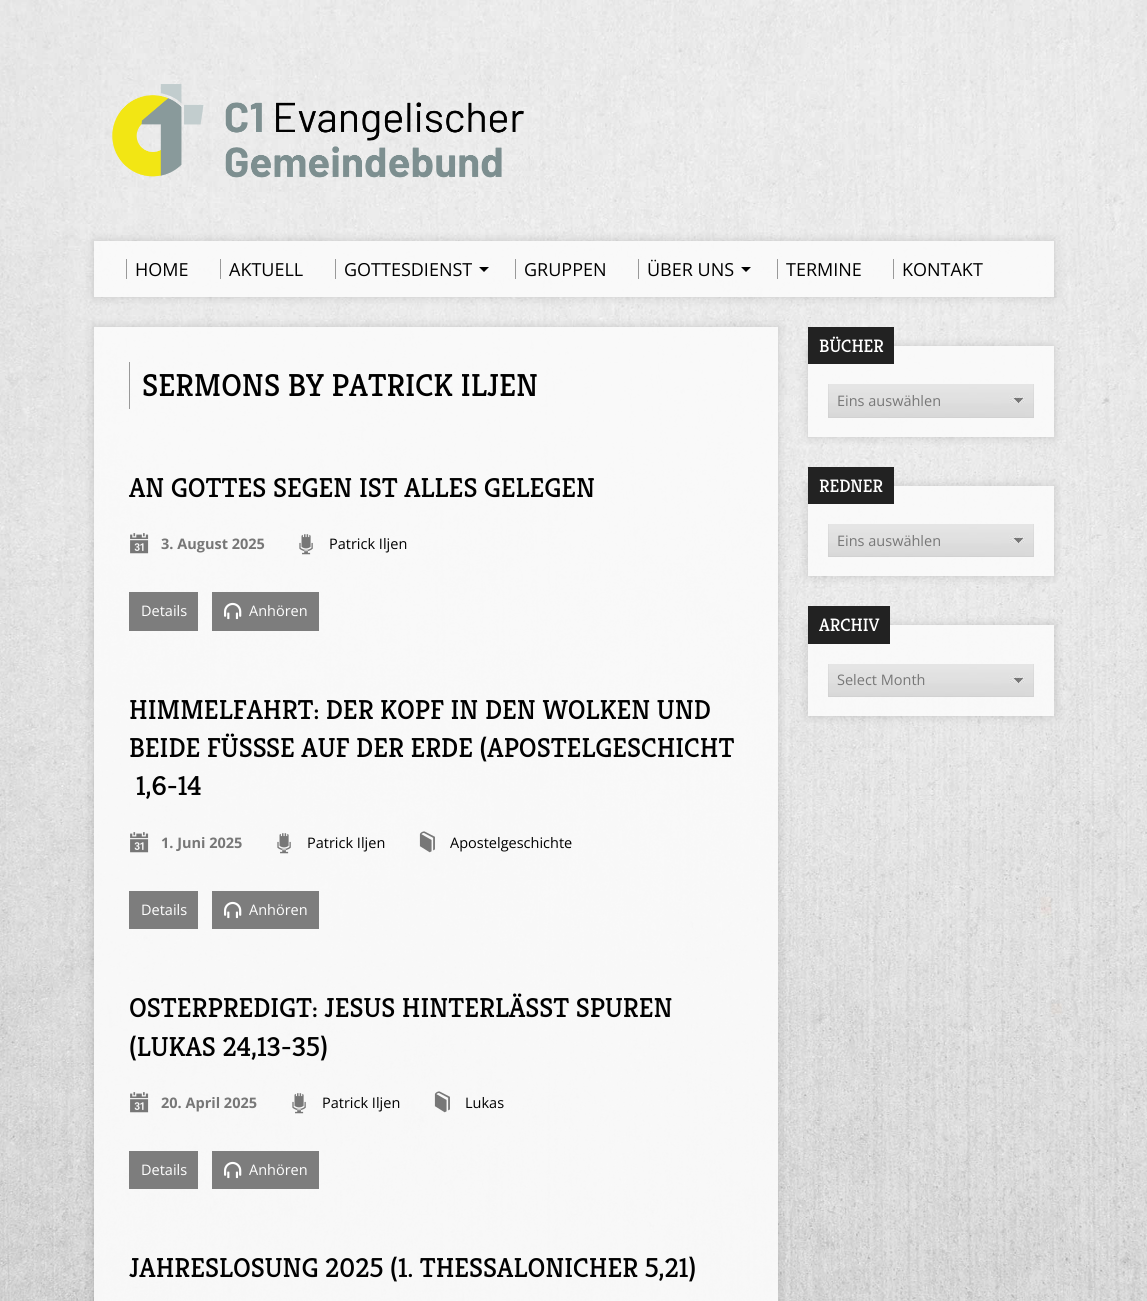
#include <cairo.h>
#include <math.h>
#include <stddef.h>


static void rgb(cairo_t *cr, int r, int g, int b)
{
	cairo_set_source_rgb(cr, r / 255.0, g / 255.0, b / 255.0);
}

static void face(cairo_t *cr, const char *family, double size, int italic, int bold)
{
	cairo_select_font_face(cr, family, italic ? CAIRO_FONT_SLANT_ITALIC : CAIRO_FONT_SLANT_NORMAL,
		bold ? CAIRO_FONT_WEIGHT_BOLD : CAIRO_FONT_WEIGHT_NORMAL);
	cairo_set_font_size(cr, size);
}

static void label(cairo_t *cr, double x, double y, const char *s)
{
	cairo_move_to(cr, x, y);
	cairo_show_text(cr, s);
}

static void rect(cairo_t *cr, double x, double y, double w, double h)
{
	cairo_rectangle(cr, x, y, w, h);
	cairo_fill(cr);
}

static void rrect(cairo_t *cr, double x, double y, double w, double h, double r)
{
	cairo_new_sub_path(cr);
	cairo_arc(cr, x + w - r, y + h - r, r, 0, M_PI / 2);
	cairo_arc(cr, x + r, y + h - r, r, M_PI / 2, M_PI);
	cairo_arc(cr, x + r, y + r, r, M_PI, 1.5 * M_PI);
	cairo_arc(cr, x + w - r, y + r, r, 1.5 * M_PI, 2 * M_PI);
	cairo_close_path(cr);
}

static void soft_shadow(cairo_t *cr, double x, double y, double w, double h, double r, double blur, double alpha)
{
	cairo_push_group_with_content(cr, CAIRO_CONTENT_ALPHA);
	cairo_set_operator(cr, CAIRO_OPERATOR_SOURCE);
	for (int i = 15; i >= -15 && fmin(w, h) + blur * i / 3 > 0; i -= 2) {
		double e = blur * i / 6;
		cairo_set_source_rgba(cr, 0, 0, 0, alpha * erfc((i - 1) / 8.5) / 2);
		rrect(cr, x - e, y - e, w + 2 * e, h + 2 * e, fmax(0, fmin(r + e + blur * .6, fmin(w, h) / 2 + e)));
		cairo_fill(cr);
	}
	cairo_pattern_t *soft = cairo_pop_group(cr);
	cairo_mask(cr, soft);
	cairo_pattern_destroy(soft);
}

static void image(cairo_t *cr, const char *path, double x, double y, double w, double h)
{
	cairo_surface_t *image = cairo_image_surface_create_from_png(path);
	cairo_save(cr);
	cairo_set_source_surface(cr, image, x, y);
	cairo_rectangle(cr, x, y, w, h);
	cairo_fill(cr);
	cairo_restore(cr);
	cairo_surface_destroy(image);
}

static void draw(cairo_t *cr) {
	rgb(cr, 255, 255, 255);
	cairo_paint(cr);
	image(cr, "image0.png", 0, 0, 1147, 1301);
	image(cr, "image1.png", 112, 84, 412, 94);
	cairo_save(cr);
	cairo_set_fill_rule(cr, CAIRO_FILL_RULE_EVEN_ODD);
	cairo_new_path(cr);
	cairo_move_to(cr, 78, 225);
	cairo_line_to(cr, 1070, 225);
	cairo_line_to(cr, 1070, 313);
	cairo_line_to(cr, 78, 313);
	cairo_close_path(cr);
	cairo_move_to(cr, 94, 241);
	cairo_line_to(cr, 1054, 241);
	cairo_line_to(cr, 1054, 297);
	cairo_line_to(cr, 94, 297);
	cairo_close_path(cr);
	cairo_clip(cr);
	rgb(cr, 0, 0, 0);
	soft_shadow(cr, 94, 241, 960, 56, 0, 5, 0.15);
	cairo_restore(cr);
	cairo_set_source_rgba(cr, 0.98, 0.98, 0.98, 0.94);
	rect(cr, 94, 241, 960, 56);
	rgb(cr, 153, 153, 153);
	rect(cr, 126, 259, 1, 20);
	face(cr, "Open Sans", 18, 0, 0);
	rgb(cr, 0, 0, 0);
	label(cr, 135, 276, "HOME");
	rgb(cr, 153, 153, 153);
	rect(cr, 220, 259, 1, 20);
	rgb(cr, 0, 0, 0);
	label(cr, 229, 276, "AKTUELL");
	rgb(cr, 153, 153, 153);
	rect(cr, 335, 259, 1, 20);
	rgb(cr, 0, 0, 0);
	label(cr, 344, 276, "GOTTESDIENST");
	cairo_new_path(cr);
	cairo_move_to(cr, 479, 267);
	cairo_line_to(cr, 489, 267);
	cairo_line_to(cr, 484, 272);
	cairo_close_path(cr);
	cairo_fill(cr);
	rgb(cr, 153, 153, 153);
	rect(cr, 515, 259, 1, 20);
	rgb(cr, 0, 0, 0);
	label(cr, 524, 276, "GRUPPEN");
	rgb(cr, 153, 153, 153);
	rect(cr, 638, 259, 1, 20);
	rgb(cr, 0, 0, 0);
	label(cr, 647, 276, "ÜBER UNS");
	cairo_new_path(cr);
	cairo_move_to(cr, 741, 267);
	cairo_line_to(cr, 751, 267);
	cairo_line_to(cr, 746, 272);
	cairo_close_path(cr);
	cairo_fill(cr);
	rgb(cr, 153, 153, 153);
	rect(cr, 777, 259, 1, 20);
	rgb(cr, 0, 0, 0);
	label(cr, 786, 276, "TERMINE");
	rgb(cr, 153, 153, 153);
	rect(cr, 893, 259, 1, 20);
	rgb(cr, 0, 0, 0);
	label(cr, 902, 276, "KONTAKT");
	cairo_save(cr);
	cairo_set_fill_rule(cr, CAIRO_FILL_RULE_EVEN_ODD);
	cairo_new_path(cr);
	cairo_move_to(cr, 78, 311);
	cairo_line_to(cr, 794, 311);
	cairo_line_to(cr, 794, 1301);
	cairo_line_to(cr, 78, 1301);
	cairo_close_path(cr);
	cairo_move_to(cr, 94, 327);
	cairo_line_to(cr, 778, 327);
	cairo_line_to(cr, 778, 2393);
	cairo_line_to(cr, 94, 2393);
	cairo_close_path(cr);
	cairo_clip(cr);
	rgb(cr, 0, 0, 0);
	soft_shadow(cr, 94, 327, 684, 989, 0, 5, 0.15);
	cairo_restore(cr);
	cairo_set_source_rgba(cr, 0.98, 0.98, 0.98, 0.94);
	rect(cr, 94, 327, 684, 974);
	rgb(cr, 153, 153, 153);
	rect(cr, 129, 362, 1, 47);
	face(cr, "Kreon", 31.75, 0, 0);
	rgb(cr, 0, 0, 0);
	label(cr, 142, 396, "SERMONS BY PATRICK ILJEN");
	face(cr, "Kreon", 27.4, 0, 0);
	label(cr, 129, 497, "AN GOTTES SEGEN IST ALLES GELEGEN");
	image(cr, "image2.png", 130, 533, 19, 21);
	face(cr, "Open Sans", 14.5, 0, 1);
	rgb(cr, 119, 119, 119);
	label(cr, 161, 549, "3. August 2025");
	image(cr, "image3.png", 299, 534, 14, 21);
	face(cr, "Open Sans", 14.5, 0, 0);
	rgb(cr, 0, 0, 0);
	label(cr, 329, 549, "Patrick Iljen");
	rgb(cr, 125, 125, 125);
	rect(cr, 129, 592, 69, 39);
	rgb(cr, 255, 255, 255);
	label(cr, 141, 616, "Details");
	rgb(cr, 125, 125, 125);
	rect(cr, 212, 592, 107, 39);
	image(cr, "image4.png", 224, 602, 18, 18);
	rgb(cr, 255, 255, 255);
	label(cr, 249, 616, "Anhören");
	face(cr, "Kreon", 27.4, 0, 0);
	rgb(cr, 0, 0, 0);
	label(cr, 129, 719, "HIMMELFAHRT: DER KOPF IN DEN WOLKEN UND");
	label(cr, 129, 757, "BEIDE FÜSS");
	label(cr, 266, 757, "SE AUF DER ERDE (APOSTELGESCHICHT");
	label(cr, 136, 795, "1,6-14");
	image(cr, "image5.png", 130, 832, 19, 21);
	face(cr, "Open Sans", 14.5, 0, 1);
	rgb(cr, 119, 119, 119);
	label(cr, 161, 848, "1. Juni 2025");
	image(cr, "image6.png", 277, 833, 14, 21);
	face(cr, "Open Sans", 14.5, 0, 0);
	rgb(cr, 0, 0, 0);
	label(cr, 307, 848, "Patrick Iljen");
	image(cr, "image7.png", 419, 831, 16, 22);
	label(cr, 450, 848, "Apostelgeschichte");
	rgb(cr, 125, 125, 125);
	rect(cr, 129, 891, 69, 38);
	rgb(cr, 255, 255, 255);
	label(cr, 141, 915, "Details");
	rgb(cr, 125, 125, 125);
	rect(cr, 212, 891, 107, 38);
	image(cr, "image4.png", 224, 901, 18, 18);
	rgb(cr, 255, 255, 255);
	label(cr, 249, 915, "Anhören");
	face(cr, "Kreon", 27.4, 0, 0);
	rgb(cr, 0, 0, 0);
	label(cr, 129, 1017, "OSTERPREDIGT: JESUS HINTERLÄSST SPUREN");
	label(cr, 129, 1056, "(LUKAS 24,13-35)");
	image(cr, "image8.png", 130, 1092, 19, 21);
	face(cr, "Open Sans", 14.5, 0, 1);
	rgb(cr, 119, 119, 119);
	label(cr, 161, 1108, "20. April 2025");
	image(cr, "image9.png", 292, 1093, 14, 21);
	face(cr, "Open Sans", 14.5, 0, 0);
	rgb(cr, 0, 0, 0);
	label(cr, 322, 1108, "Patrick Iljen");
	image(cr, "image10.png", 434, 1091, 16, 22);
	label(cr, 465, 1108, "Lukas");
	rgb(cr, 125, 125, 125);
	rect(cr, 129, 1151, 69, 38);
	rgb(cr, 255, 255, 255);
	label(cr, 141, 1175, "Details");
	rgb(cr, 125, 125, 125);
	rect(cr, 212, 1151, 107, 38);
	image(cr, "image4.png", 224, 1161, 18, 18);
	rgb(cr, 255, 255, 255);
	label(cr, 249, 1175, "Anhören");
	face(cr, "Kreon", 27.4, 0, 0);
	rgb(cr, 0, 0, 0);
	label(cr, 129, 1277, "JAHRESLOSUNG 2025 (1. THESSALONICHER 5,21)");
	cairo_save(cr);
	cairo_set_fill_rule(cr, CAIRO_FILL_RULE_EVEN_ODD);
	cairo_new_path(cr);
	cairo_move_to(cr, 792, 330);
	cairo_line_to(cr, 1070, 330);
	cairo_line_to(cr, 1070, 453);
	cairo_line_to(cr, 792, 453);
	cairo_close_path(cr);
	cairo_move_to(cr, 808, 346);
	cairo_line_to(cr, 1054, 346);
	cairo_line_to(cr, 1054, 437);
	cairo_line_to(cr, 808, 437);
	cairo_close_path(cr);
	cairo_clip(cr);
	rgb(cr, 0, 0, 0);
	soft_shadow(cr, 808, 346, 246, 91, 0, 5, 0.15);
	cairo_restore(cr);
	cairo_set_source_rgba(cr, 0.98, 0.98, 0.98, 0.94);
	rect(cr, 808, 346, 246, 91);
	rgb(cr, 34, 34, 34);
	rect(cr, 808, 327, 86, 37);
	face(cr, "Kreon", 18, 0, 0);
	rgb(cr, 255, 255, 255);
	label(cr, 819, 352, "BÜCHER");
	image(cr, "image11.png", 828, 384, 206, 34);
	cairo_set_source_rgba(cr, 0.588, 0.588, 0.588, 0.1);
	cairo_new_path(cr);
	cairo_move_to(cr, 1034, 384);
	cairo_line_to(cr, 1034, 418);
	cairo_line_to(cr, 1033, 417);
	cairo_line_to(cr, 1033, 384);
	cairo_close_path(cr);
	cairo_fill(cr);
	cairo_new_path(cr);
	cairo_move_to(cr, 1034, 418);
	cairo_line_to(cr, 828, 418);
	cairo_line_to(cr, 829, 417);
	cairo_line_to(cr, 1033, 417);
	cairo_close_path(cr);
	cairo_fill(cr);
	cairo_new_path(cr);
	cairo_move_to(cr, 828, 418);
	cairo_line_to(cr, 828, 384);
	cairo_line_to(cr, 829, 384);
	cairo_line_to(cr, 829, 417);
	cairo_close_path(cr);
	cairo_fill(cr);
	face(cr, "Open Sans", 14.5, 0, 0);
	rgb(cr, 119, 119, 119);
	label(cr, 837, 406, "Eins auswählen");
	cairo_save(cr);
	cairo_set_fill_rule(cr, CAIRO_FILL_RULE_EVEN_ODD);
	cairo_new_path(cr);
	cairo_move_to(cr, 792, 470);
	cairo_line_to(cr, 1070, 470);
	cairo_line_to(cr, 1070, 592);
	cairo_line_to(cr, 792, 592);
	cairo_close_path(cr);
	cairo_move_to(cr, 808, 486);
	cairo_line_to(cr, 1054, 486);
	cairo_line_to(cr, 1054, 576);
	cairo_line_to(cr, 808, 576);
	cairo_close_path(cr);
	cairo_clip(cr);
	rgb(cr, 0, 0, 0);
	soft_shadow(cr, 808, 486, 246, 90, 0, 5, 0.15);
	cairo_restore(cr);
	cairo_set_source_rgba(cr, 0.98, 0.98, 0.98, 0.94);
	rect(cr, 808, 486, 246, 90);
	rgb(cr, 34, 34, 34);
	rect(cr, 808, 467, 86, 37);
	face(cr, "Kreon", 18, 0, 0);
	rgb(cr, 255, 255, 255);
	label(cr, 819, 492, "REDNER");
	image(cr, "image12.png", 828, 524, 206, 33);
	cairo_set_source_rgba(cr, 0.588, 0.588, 0.588, 0.1);
	cairo_new_path(cr);
	cairo_move_to(cr, 1034, 524);
	cairo_line_to(cr, 1034, 557);
	cairo_line_to(cr, 1033, 556);
	cairo_line_to(cr, 1033, 524);
	cairo_close_path(cr);
	cairo_fill(cr);
	cairo_new_path(cr);
	cairo_move_to(cr, 1034, 557);
	cairo_line_to(cr, 828, 557);
	cairo_line_to(cr, 829, 556);
	cairo_line_to(cr, 1033, 556);
	cairo_close_path(cr);
	cairo_fill(cr);
	cairo_new_path(cr);
	cairo_move_to(cr, 828, 557);
	cairo_line_to(cr, 828, 524);
	cairo_line_to(cr, 829, 524);
	cairo_line_to(cr, 829, 556);
	cairo_close_path(cr);
	cairo_fill(cr);
	face(cr, "Open Sans", 14.5, 0, 0);
	rgb(cr, 119, 119, 119);
	label(cr, 837, 546, "Eins auswählen");
	cairo_save(cr);
	cairo_set_fill_rule(cr, CAIRO_FILL_RULE_EVEN_ODD);
	cairo_new_path(cr);
	cairo_move_to(cr, 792, 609);
	cairo_line_to(cr, 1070, 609);
	cairo_line_to(cr, 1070, 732);
	cairo_line_to(cr, 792, 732);
	cairo_close_path(cr);
	cairo_move_to(cr, 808, 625);
	cairo_line_to(cr, 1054, 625);
	cairo_line_to(cr, 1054, 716);
	cairo_line_to(cr, 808, 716);
	cairo_close_path(cr);
	cairo_clip(cr);
	rgb(cr, 0, 0, 0);
	soft_shadow(cr, 808, 625, 246, 91, 0, 5, 0.15);
	cairo_restore(cr);
	cairo_set_source_rgba(cr, 0.98, 0.98, 0.98, 0.94);
	rect(cr, 808, 625, 246, 91);
	rgb(cr, 34, 34, 34);
	rect(cr, 808, 606, 82, 38);
	face(cr, "Kreon", 18, 0, 0);
	rgb(cr, 255, 255, 255);
	label(cr, 819, 631, "ARCHIV");
	image(cr, "image12.png", 828, 664, 206, 33);
	cairo_set_source_rgba(cr, 0.588, 0.588, 0.588, 0.1);
	cairo_new_path(cr);
	cairo_move_to(cr, 1034, 664);
	cairo_line_to(cr, 1034, 697);
	cairo_line_to(cr, 1033, 696);
	cairo_line_to(cr, 1033, 664);
	cairo_close_path(cr);
	cairo_fill(cr);
	cairo_new_path(cr);
	cairo_move_to(cr, 1034, 697);
	cairo_line_to(cr, 828, 697);
	cairo_line_to(cr, 829, 696);
	cairo_line_to(cr, 1033, 696);
	cairo_close_path(cr);
	cairo_fill(cr);
	cairo_new_path(cr);
	cairo_move_to(cr, 828, 697);
	cairo_line_to(cr, 828, 664);
	cairo_line_to(cr, 829, 664);
	cairo_line_to(cr, 829, 696);
	cairo_close_path(cr);
	cairo_fill(cr);
	face(cr, "Open Sans", 14.5, 0, 0);
	rgb(cr, 119, 119, 119);
	label(cr, 837, 685, "Select Month");
}

int main(void) {
	cairo_surface_t *surface = cairo_image_surface_create(CAIRO_FORMAT_RGB24, 1147, 1301);
	cairo_t *cr = cairo_create(surface);
	cairo_font_options_t *options = cairo_font_options_create();
	cairo_font_options_set_hint_metrics(options, CAIRO_HINT_METRICS_OFF);
	cairo_font_options_set_hint_style(options, CAIRO_HINT_STYLE_NONE);
	cairo_set_font_options(cr, options);
	cairo_set_miter_limit(cr, 4);
	draw(cr);
	cairo_surface_write_to_png(surface, "render.png");
	cairo_font_options_destroy(options);
	cairo_destroy(cr);
	cairo_surface_destroy(surface);
	return 0;
}
